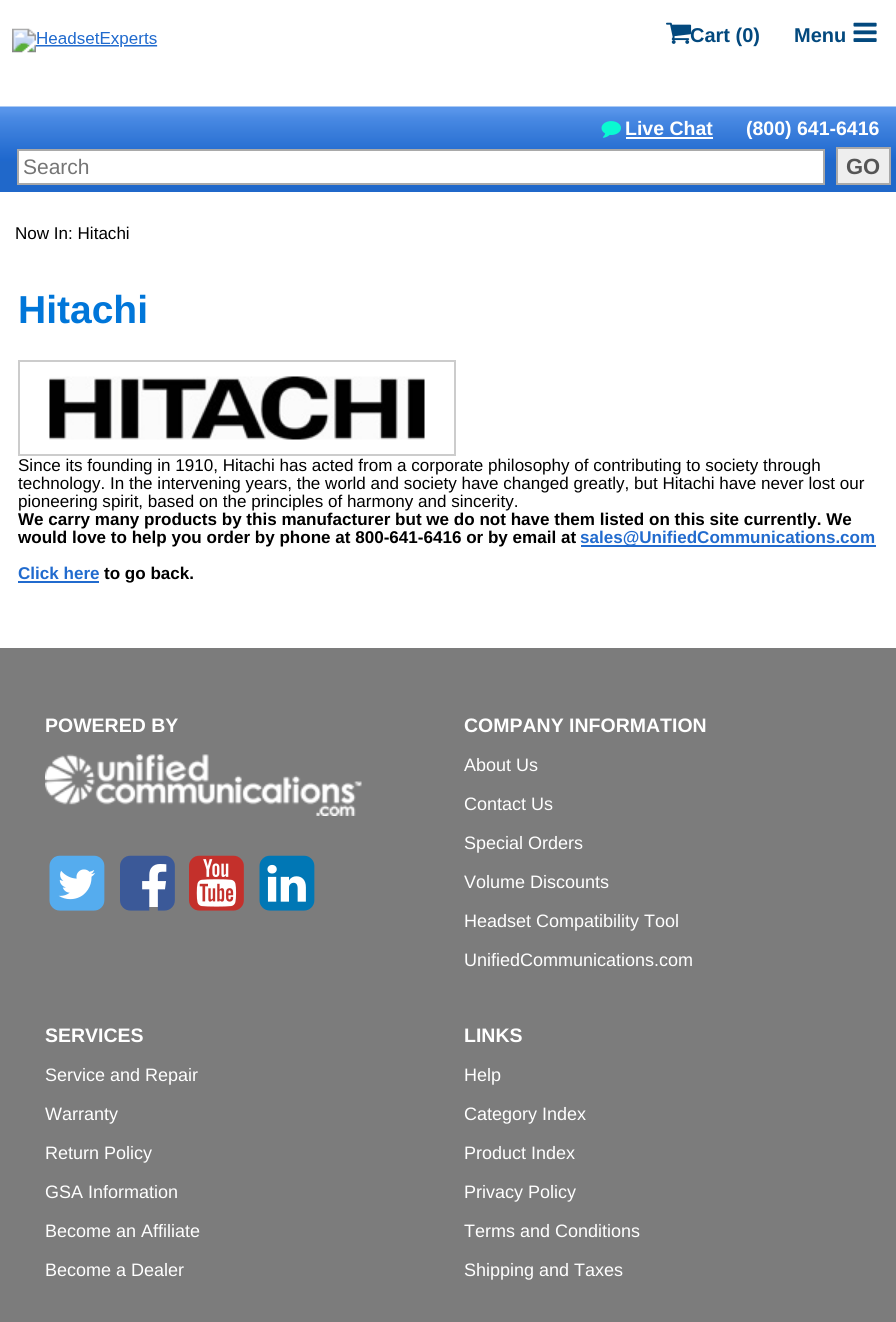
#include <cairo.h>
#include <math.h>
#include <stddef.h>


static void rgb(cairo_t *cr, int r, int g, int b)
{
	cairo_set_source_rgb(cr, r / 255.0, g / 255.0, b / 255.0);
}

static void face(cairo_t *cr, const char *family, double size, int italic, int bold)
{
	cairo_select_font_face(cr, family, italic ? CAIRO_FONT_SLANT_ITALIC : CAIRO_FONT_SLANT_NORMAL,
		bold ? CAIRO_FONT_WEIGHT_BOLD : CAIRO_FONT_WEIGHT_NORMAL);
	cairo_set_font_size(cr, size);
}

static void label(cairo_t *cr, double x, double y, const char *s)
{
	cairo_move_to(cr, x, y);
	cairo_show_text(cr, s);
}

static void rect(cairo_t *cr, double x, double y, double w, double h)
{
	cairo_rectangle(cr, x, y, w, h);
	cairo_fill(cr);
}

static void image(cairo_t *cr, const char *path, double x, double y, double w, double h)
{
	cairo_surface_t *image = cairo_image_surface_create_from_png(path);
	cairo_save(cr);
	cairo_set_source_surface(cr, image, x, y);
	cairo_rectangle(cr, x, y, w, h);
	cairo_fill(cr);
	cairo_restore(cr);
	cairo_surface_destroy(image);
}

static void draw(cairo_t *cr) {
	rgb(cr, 255, 255, 255);
	cairo_paint(cr);
	image(cr, "image0.png", 12, 28, 146, 25);
	face(cr, "Liberation Sans", 20, 0, 1);
	rgb(cr, 3, 73, 126);
	label(cr, 690, 42, "Cart (0)");
	image(cr, "image1.png", 666, 22, 26, 22);
	label(cr, 794, 42, "Menu");
	image(cr, "image2.png", 853, 22, 24, 20);
	image(cr, "image3.png", 0, 106, 896, 86);
	image(cr, "image4.png", 601, 121, 20, 17);
	face(cr, "Liberation Sans", 19.5, 0, 1);
	rgb(cr, 255, 255, 255);
	label(cr, 625, 135, "Live Chat");
	rect(cr, 626, 137, 87, 2);
	label(cr, 746, 135, "(800) 641-6416");
	cairo_rectangle(cr, 18, 150, 806, 34);
	cairo_fill_preserve(cr);
	rgb(cr, 169, 169, 169);
	cairo_stroke(cr);
	face(cr, "Liberation Sans", 21, 0, 0);
	rgb(cr, 117, 117, 117);
	label(cr, 23, 174, "Search");
	rgb(cr, 238, 238, 238);
	cairo_rectangle(cr, 837, 148, 53, 36);
	cairo_fill_preserve(cr);
	rgb(cr, 169, 169, 169);
	cairo_stroke(cr);
	face(cr, "Liberation Sans", 22, 0, 1);
	rgb(cr, 85, 85, 85);
	label(cr, 846, 174, "GO");
	face(cr, "Liberation Sans", 17.05, 0, 0);
	rgb(cr, 0, 0, 0);
	label(cr, 15, 239, "Now In: Hitachi");
	face(cr, "Liberation Sans", 39, 0, 1);
	rgb(cr, 0, 118, 217);
	label(cr, 18, 323, "Hitachi");
	cairo_rectangle(cr, 19, 361, 436, 94);
	rgb(cr, 204, 204, 204);
	cairo_stroke(cr);
	image(cr, "image5.png", 49, 376, 376, 64);
	face(cr, "Liberation Sans", 17.05, 0, 0);
	rgb(cr, 0, 0, 0);
	label(cr, 18, 471, "Since its founding in 1910, Hitachi has acted from a corporate philosophy of contributing to society through");
	label(cr, 18, 489, "technology. In the intervening years, the world and society have changed greatly, but Hitachi have never lost our");
	label(cr, 18, 507, "pioneering spirit, based on the principles of harmony and sincerity.");
	face(cr, "Liberation Sans", 17.05, 0, 1);
	label(cr, 18, 525, "We carry many products by this manufacturer but we do not have them listed on this site currently. We");
	label(cr, 18, 543, "would love to help you order by phone at 800-641-6416 or by email at");
	rgb(cr, 33, 107, 206);
	rect(cr, 581, 545, 295, 2);
	label(cr, 580, 543, "sales@UnifiedCommunications.com");
	label(cr, 18, 579, "Click here");
	rect(cr, 18, 581, 81, 2);
	rgb(cr, 0, 0, 0);
	label(cr, 104, 579, "to go back.");
	rgb(cr, 124, 124, 124);
	rect(cr, 0, 648, 896, 674);
	face(cr, "Liberation Sans", 19.5, 0, 1);
	rgb(cr, 255, 255, 255);
	label(cr, 45, 732, "POWERED BY");
	image(cr, "image6.png", 45, 754, 317, 62);
	cairo_new_path(cr);
	cairo_move_to(cr, 102, 866);
	cairo_line_to(cr, 102, 900);
	cairo_curve_to(cr, 101, 907, 94, 907, 87, 907);
	cairo_line_to(cr, 66, 907);
	cairo_curve_to(cr, 60, 907, 53, 907, 51, 900);
	cairo_line_to(cr, 51, 866);
	cairo_curve_to(cr, 51, 856, 59, 856, 66, 856);
	cairo_line_to(cr, 87, 856);
	cairo_curve_to(cr, 94, 856, 102, 856, 102, 866);
	cairo_close_path(cr);
	cairo_fill(cr);
	image(cr, "image7.png", 49, 855, 56, 56);
	cairo_new_path(cr);
	cairo_move_to(cr, 173, 866);
	cairo_line_to(cr, 173, 900);
	cairo_curve_to(cr, 171, 907, 164, 907, 158, 907);
	cairo_line_to(cr, 136, 907);
	cairo_curve_to(cr, 130, 907, 123, 907, 122, 900);
	cairo_line_to(cr, 122, 866);
	cairo_curve_to(cr, 122, 856, 130, 856, 136, 856);
	cairo_line_to(cr, 158, 856);
	cairo_curve_to(cr, 165, 856, 173, 856, 173, 866);
	cairo_close_path(cr);
	cairo_fill(cr);
	image(cr, "image8.png", 120, 855, 55, 56);
	cairo_new_path(cr);
	cairo_move_to(cr, 242, 866);
	cairo_line_to(cr, 242, 900);
	cairo_curve_to(cr, 240, 907, 233, 907, 227, 907);
	cairo_line_to(cr, 205, 907);
	cairo_curve_to(cr, 199, 907, 192, 907, 191, 900);
	cairo_line_to(cr, 190, 866);
	cairo_curve_to(cr, 191, 856, 199, 856, 205, 856);
	cairo_line_to(cr, 227, 856);
	cairo_curve_to(cr, 234, 856, 242, 856, 242, 866);
	cairo_close_path(cr);
	cairo_fill(cr);
	image(cr, "image9.png", 189, 855, 55, 56);
	cairo_new_path(cr);
	cairo_move_to(cr, 312, 866);
	cairo_line_to(cr, 312, 900);
	cairo_curve_to(cr, 311, 907, 304, 907, 297, 907);
	cairo_line_to(cr, 276, 907);
	cairo_curve_to(cr, 270, 907, 263, 907, 261, 900);
	cairo_line_to(cr, 261, 866);
	cairo_curve_to(cr, 261, 856, 269, 856, 276, 856);
	cairo_line_to(cr, 297, 856);
	cairo_curve_to(cr, 304, 856, 312, 856, 312, 866);
	cairo_close_path(cr);
	cairo_fill(cr);
	image(cr, "image10.png", 259, 855, 56, 56);
	label(cr, 464, 732, "COMPANY INFORMATION");
	face(cr, "Liberation Sans", 18, 0, 0);
	label(cr, 464, 771, "About Us");
	label(cr, 464, 810, "Contact Us");
	label(cr, 464, 849, "Special Orders");
	label(cr, 464, 888, "Volume Discounts");
	label(cr, 464, 927, "Headset Compatibility Tool");
	label(cr, 464, 966, "UnifiedCommunications.com");
	face(cr, "Liberation Sans", 19.5, 0, 1);
	label(cr, 45, 1042, "SERVICES");
	face(cr, "Liberation Sans", 18, 0, 0);
	label(cr, 45, 1081, "Service and Repair");
	label(cr, 45, 1120, "Warranty");
	label(cr, 45, 1159, "Return Policy");
	label(cr, 45, 1198, "GSA Information");
	label(cr, 45, 1237, "Become an Affiliate");
	label(cr, 45, 1276, "Become a Dealer");
	face(cr, "Liberation Sans", 19.5, 0, 1);
	label(cr, 464, 1042, "LINKS");
	face(cr, "Liberation Sans", 18, 0, 0);
	label(cr, 464, 1081, "Help");
	label(cr, 464, 1120, "Category Index");
	label(cr, 464, 1159, "Product Index");
	label(cr, 464, 1198, "Privacy Policy");
	label(cr, 464, 1237, "Terms and Conditions");
	label(cr, 464, 1276, "Shipping and Taxes");
}

int main(void) {
	cairo_surface_t *surface = cairo_image_surface_create(CAIRO_FORMAT_RGB24, 896, 1322);
	cairo_t *cr = cairo_create(surface);
	cairo_font_options_t *options = cairo_font_options_create();
	cairo_font_options_set_hint_metrics(options, CAIRO_HINT_METRICS_OFF);
	cairo_font_options_set_hint_style(options, CAIRO_HINT_STYLE_NONE);
	cairo_set_font_options(cr, options);
	cairo_set_miter_limit(cr, 4);
	draw(cr);
	cairo_surface_write_to_png(surface, "render.png");
	cairo_font_options_destroy(options);
	cairo_destroy(cr);
	cairo_surface_destroy(surface);
	return 0;
}
